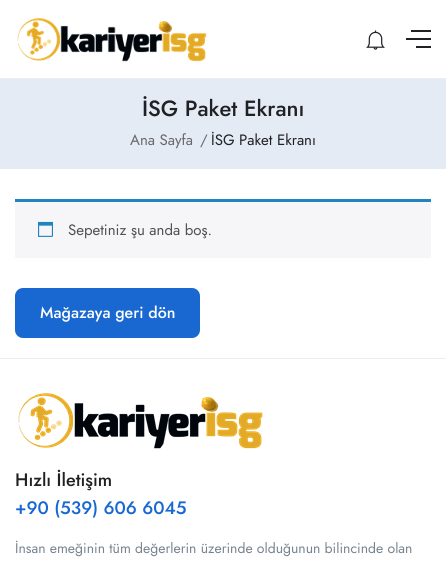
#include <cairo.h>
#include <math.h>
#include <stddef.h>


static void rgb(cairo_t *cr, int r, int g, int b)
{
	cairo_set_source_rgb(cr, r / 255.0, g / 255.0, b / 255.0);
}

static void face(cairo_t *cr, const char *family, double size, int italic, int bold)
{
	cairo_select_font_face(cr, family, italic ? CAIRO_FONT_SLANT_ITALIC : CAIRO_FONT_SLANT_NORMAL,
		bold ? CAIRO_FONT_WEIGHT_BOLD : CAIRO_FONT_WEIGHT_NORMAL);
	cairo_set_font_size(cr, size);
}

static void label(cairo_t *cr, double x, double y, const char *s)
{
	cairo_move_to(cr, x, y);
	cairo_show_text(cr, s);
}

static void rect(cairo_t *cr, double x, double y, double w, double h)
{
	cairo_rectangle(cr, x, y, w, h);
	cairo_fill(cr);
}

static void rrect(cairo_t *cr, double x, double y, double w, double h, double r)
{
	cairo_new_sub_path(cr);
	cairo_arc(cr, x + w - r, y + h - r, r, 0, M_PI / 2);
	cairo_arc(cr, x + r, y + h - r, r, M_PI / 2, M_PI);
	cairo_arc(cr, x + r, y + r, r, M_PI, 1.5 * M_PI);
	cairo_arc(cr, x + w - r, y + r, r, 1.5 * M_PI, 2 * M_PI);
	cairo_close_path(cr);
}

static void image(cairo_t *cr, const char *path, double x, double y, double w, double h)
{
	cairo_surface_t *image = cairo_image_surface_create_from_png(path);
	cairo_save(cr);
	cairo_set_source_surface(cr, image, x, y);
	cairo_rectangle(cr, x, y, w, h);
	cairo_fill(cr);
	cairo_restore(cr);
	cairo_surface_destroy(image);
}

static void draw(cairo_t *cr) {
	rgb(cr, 255, 255, 255);
	cairo_paint(cr);
	rgb(cr, 236, 237, 242);
	rect(cr, 0, 78, 446, 1);
	image(cr, "image0.png", 17, 18, 190, 44);
	image(cr, "image1.png", 366, 30, 19, 20);
	rgb(cr, 32, 33, 36);
	rect(cr, 411, 30, 20, 2);
	rect(cr, 406, 38, 25, 2);
	rect(cr, 416, 46, 15, 2);
	rgb(cr, 229, 235, 245);
	rect(cr, 0, 79, 446, 90);
	face(cr, "Jost Medium", 22, 0, 0);
	rgb(cr, 32, 33, 36);
	label(cr, 142, 116, "İSG Paket Ekranı");
	face(cr, "Jost", 15, 0, 0);
	rgb(cr, 105, 105, 105);
	label(cr, 130, 145, "Ana Sayfa");
	label(cr, 200, 145, "/");
	rgb(cr, 32, 33, 36);
	label(cr, 211, 145, "İSG Paket Ekranı");
	rgb(cr, 246, 245, 248);
	rect(cr, 15, 202, 416, 56);
	rgb(cr, 30, 133, 190);
	rect(cr, 15, 199, 416, 3);
	image(cr, "image2.png", 38, 221, 15, 16);
	rgb(cr, 81, 81, 81);
	label(cr, 68, 235, "Sepetiniz şu anda boş.");
	rgb(cr, 25, 104, 209);
	rrect(cr, 15, 288, 185, 50, 8);
	cairo_fill(cr);
	face(cr, "Jost Medium", 16, 0, 0);
	rgb(cr, 255, 255, 255);
	label(cr, 40, 318, "Mağazaya geri dön");
	rgb(cr, 236, 237, 242);
	rect(cr, 0, 358, 446, 1);
	image(cr, "image3.png", 18, 393, 245, 56);
	face(cr, "Jost Medium", 18, 0, 0);
	rgb(cr, 32, 33, 36);
	label(cr, 15, 486, "Hızlı İletişim");
	rgb(cr, 25, 103, 210);
	label(cr, 15, 514, "+90 (539) 606 6045");
	face(cr, "Jost", 14, 0, 0);
	rgb(cr, 119, 131, 143);
	label(cr, 15, 553, "İnsan emeğinin tüm değerlerin üzerinde olduğunun bilincinde olan");
}

int main(void) {
	cairo_surface_t *surface = cairo_image_surface_create(CAIRO_FORMAT_RGB24, 446, 565);
	cairo_t *cr = cairo_create(surface);
	cairo_font_options_t *options = cairo_font_options_create();
	cairo_font_options_set_hint_metrics(options, CAIRO_HINT_METRICS_OFF);
	cairo_font_options_set_hint_style(options, CAIRO_HINT_STYLE_NONE);
	cairo_set_font_options(cr, options);
	cairo_set_miter_limit(cr, 4);
	draw(cr);
	cairo_surface_write_to_png(surface, "render.png");
	cairo_font_options_destroy(options);
	cairo_destroy(cr);
	cairo_surface_destroy(surface);
	return 0;
}
